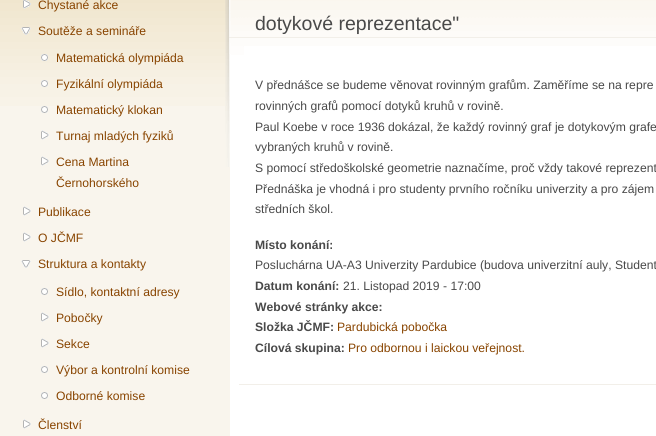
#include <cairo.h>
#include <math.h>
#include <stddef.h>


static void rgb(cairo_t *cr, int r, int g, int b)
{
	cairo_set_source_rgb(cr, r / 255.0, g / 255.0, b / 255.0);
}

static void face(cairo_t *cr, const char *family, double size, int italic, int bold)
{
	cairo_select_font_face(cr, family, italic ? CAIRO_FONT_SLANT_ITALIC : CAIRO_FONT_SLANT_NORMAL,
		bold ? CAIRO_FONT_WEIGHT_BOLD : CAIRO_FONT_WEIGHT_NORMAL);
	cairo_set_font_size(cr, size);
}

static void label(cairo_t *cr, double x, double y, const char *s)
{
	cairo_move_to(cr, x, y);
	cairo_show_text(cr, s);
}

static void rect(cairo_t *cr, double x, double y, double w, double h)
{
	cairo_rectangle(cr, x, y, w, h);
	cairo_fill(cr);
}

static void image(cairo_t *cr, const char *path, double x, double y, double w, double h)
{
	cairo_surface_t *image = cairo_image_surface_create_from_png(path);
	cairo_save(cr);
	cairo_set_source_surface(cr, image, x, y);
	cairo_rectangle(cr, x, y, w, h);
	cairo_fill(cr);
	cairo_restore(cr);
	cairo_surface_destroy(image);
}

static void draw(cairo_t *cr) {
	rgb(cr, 249, 245, 237);
	cairo_paint(cr);
	image(cr, "image0.png", 0, 0, 225, 106);
	image(cr, "image1.png", 23, 0, 8, 9);
	face(cr, "Liberation Sans", 12.15, 0, 0);
	rgb(cr, 136, 68, 0);
	label(cr, 38, 9, "Chystané akce");
	image(cr, "image2.png", 21, 27, 10, 8);
	label(cr, 38, 35, "Soutěže a semináře");
	image(cr, "image3.png", 41, 54, 7, 7);
	label(cr, 56, 62, "Matematická olympiáda");
	image(cr, "image4.png", 41, 80, 7, 7);
	label(cr, 56, 88, "Fyzikální olympiáda");
	image(cr, "image5.png", 41, 106, 7, 7);
	label(cr, 56, 114, "Matematický klokan");
	image(cr, "image6.png", 41, 130, 8, 10);
	label(cr, 56, 140, "Turnaj mladých fyziků");
	image(cr, "image6.png", 41, 156, 8, 10);
	label(cr, 56, 166, "Cena Martina");
	label(cr, 56, 187, "Černohorského");
	image(cr, "image6.png", 23, 206, 8, 10);
	label(cr, 38, 216, "Publikace");
	image(cr, "image6.png", 23, 232, 8, 10);
	label(cr, 38, 242, "O JČMF");
	image(cr, "image7.png", 21, 260, 10, 8);
	label(cr, 38, 268, "Struktura a kontakty");
	image(cr, "image5.png", 41, 288, 7, 7);
	label(cr, 56, 296, "Sídlo, kontaktní adresy");
	image(cr, "image6.png", 41, 312, 8, 10);
	label(cr, 56, 322, "Pobočky");
	image(cr, "image6.png", 41, 338, 8, 10);
	label(cr, 56, 348, "Sekce");
	image(cr, "image5.png", 41, 366, 7, 7);
	label(cr, 56, 374, "Výbor a kontrolní komise");
	image(cr, "image5.png", 41, 392, 7, 7);
	label(cr, 56, 400, "Odborné komise");
	image(cr, "image6.png", 23, 419, 8, 10);
	label(cr, 38, 429, "Členství");
	rgb(cr, 255, 255, 255);
	rect(cr, 230, 46, 426, 390);
	image(cr, "image8.png", 244, 0, 412, 46);
	image(cr, "image9.png", 225, 0, 19, 167);
	rgb(cr, 242, 239, 233);
	rect(cr, 229, 37, 427, 1);
	face(cr, "Liberation Sans", 19.5, 0, 0);
	rgb(cr, 73, 73, 73);
	label(cr, 255, 30, "dotykové reprezentace\"");
	rgb(cr, 242, 239, 233);
	rect(cr, 239, 384, 417, 1);
	face(cr, "Liberation Sans", 12.15, 0, 0);
	rgb(cr, 73, 73, 73);
	label(cr, 255, 89, "V přednášce se budeme věnovat rovinným grafům. Zaměříme se na repre");
	label(cr, 255, 110, "rovinných grafů pomocí dotyků kruhů v rovině.");
	label(cr, 255, 131, "Paul Koebe v roce 1936 dokázal, že každý rovinný graf je dotykovým grafe");
	label(cr, 255, 151, "vybraných kruhů v rovině.");
	label(cr, 255, 172, "S pomocí středoškolské geometrie naznačíme, proč vždy takové reprezent");
	label(cr, 255, 193, "Přednáška je vhodná i pro studenty prvního ročníku univerzity a pro zájem");
	label(cr, 255, 213, "středních škol.");
	face(cr, "Liberation Sans", 12.15, 0, 1);
	label(cr, 255, 249, "Místo konání:");
	face(cr, "Liberation Sans", 12.15, 0, 0);
	label(cr, 255, 269, "Posluchárna UA-A3 Univerzity Pardubice (budova univerzitní auly, Student");
	face(cr, "Liberation Sans", 12.15, 0, 1);
	label(cr, 255, 290, "Datum konání:");
	face(cr, "Liberation Sans", 12.15, 0, 0);
	label(cr, 343, 290, "21. Listopad 2019 - 17:00");
	face(cr, "Liberation Sans", 12.15, 0, 1);
	label(cr, 255, 311, "Webové stránky akce:");
	label(cr, 255, 331, "Složka JČMF:");
	face(cr, "Liberation Sans", 12.15, 0, 0);
	rgb(cr, 136, 68, 0);
	label(cr, 337, 331, "Pardubická pobočka");
	face(cr, "Liberation Sans", 12.15, 0, 1);
	rgb(cr, 73, 73, 73);
	label(cr, 255, 352, "Cílová skupina:");
	face(cr, "Liberation Sans", 12.15, 0, 0);
	rgb(cr, 136, 68, 0);
	label(cr, 348, 352, "Pro odbornou i laickou veřejnost.");
}

int main(void) {
	cairo_surface_t *surface = cairo_image_surface_create(CAIRO_FORMAT_RGB24, 656, 436);
	cairo_t *cr = cairo_create(surface);
	cairo_font_options_t *options = cairo_font_options_create();
	cairo_font_options_set_hint_metrics(options, CAIRO_HINT_METRICS_OFF);
	cairo_font_options_set_hint_style(options, CAIRO_HINT_STYLE_NONE);
	cairo_set_font_options(cr, options);
	cairo_set_miter_limit(cr, 4);
	draw(cr);
	cairo_surface_write_to_png(surface, "render.png");
	cairo_font_options_destroy(options);
	cairo_destroy(cr);
	cairo_surface_destroy(surface);
	return 0;
}
